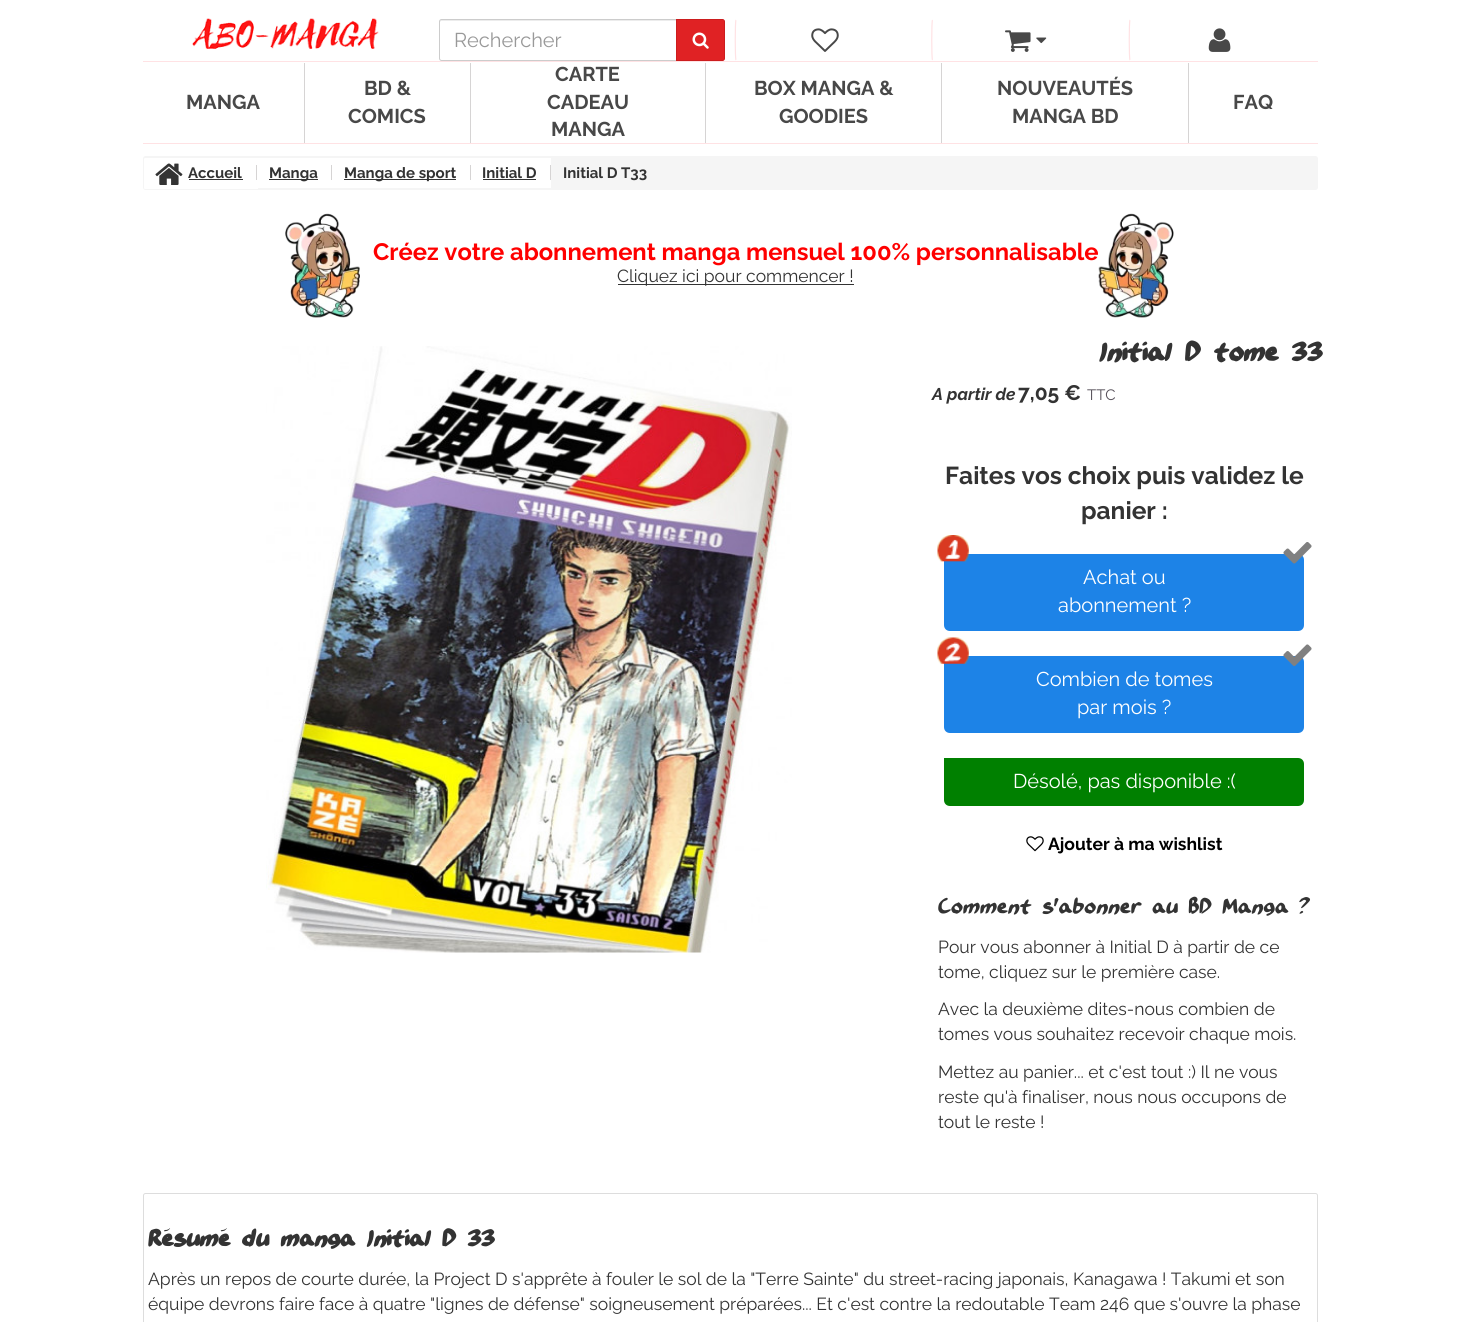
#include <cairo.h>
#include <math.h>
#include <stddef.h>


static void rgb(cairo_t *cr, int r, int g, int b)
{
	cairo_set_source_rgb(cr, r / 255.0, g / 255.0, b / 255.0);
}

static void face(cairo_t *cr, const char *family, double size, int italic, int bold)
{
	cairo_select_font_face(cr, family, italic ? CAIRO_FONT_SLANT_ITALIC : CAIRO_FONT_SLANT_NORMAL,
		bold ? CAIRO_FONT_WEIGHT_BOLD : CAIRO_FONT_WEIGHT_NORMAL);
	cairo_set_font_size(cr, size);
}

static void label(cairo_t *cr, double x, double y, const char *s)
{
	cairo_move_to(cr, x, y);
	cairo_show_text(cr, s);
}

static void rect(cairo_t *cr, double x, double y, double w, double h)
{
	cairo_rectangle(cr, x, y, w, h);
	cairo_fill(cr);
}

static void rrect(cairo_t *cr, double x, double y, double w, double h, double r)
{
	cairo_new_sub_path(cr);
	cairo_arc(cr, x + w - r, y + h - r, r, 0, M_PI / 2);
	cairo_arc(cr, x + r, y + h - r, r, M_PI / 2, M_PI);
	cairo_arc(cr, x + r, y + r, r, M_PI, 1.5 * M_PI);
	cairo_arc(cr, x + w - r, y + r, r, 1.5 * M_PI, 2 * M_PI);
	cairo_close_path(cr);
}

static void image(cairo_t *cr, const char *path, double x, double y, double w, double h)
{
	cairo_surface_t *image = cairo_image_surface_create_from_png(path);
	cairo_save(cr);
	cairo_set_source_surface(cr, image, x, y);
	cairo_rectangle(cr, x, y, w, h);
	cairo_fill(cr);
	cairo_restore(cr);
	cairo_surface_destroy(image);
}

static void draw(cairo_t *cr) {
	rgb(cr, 255, 255, 255);
	cairo_paint(cr);
	image(cr, "image0.png", 192, 18, 187, 31);
	rgb(cr, 236, 236, 236);
	cairo_new_path(cr);
	cairo_move_to(cr, 441, 21);
	cairo_line_to(cr, 676, 21);
	cairo_line_to(cr, 676, 20);
	cairo_line_to(cr, 441, 20);
	cairo_curve_to(cr, 440, 20, 440, 21, 440, 22);
	cairo_close_path(cr);
	cairo_fill(cr);
	cairo_new_path(cr);
	cairo_move_to(cr, 441.5, 19.5);
	cairo_line_to(cr, 677.5, 19.5);
	cairo_line_to(cr, 677.5, 60.5);
	cairo_line_to(cr, 441.5, 60.5);
	cairo_curve_to(cr, 440.5, 60.5, 439.5, 59.5, 439.5, 58.5);
	cairo_line_to(cr, 439.5, 21.5);
	cairo_curve_to(cr, 439.5, 20.5, 440.5, 19.5, 441.5, 19.5);
	cairo_close_path(cr);
	rgb(cr, 204, 204, 204);
	cairo_set_line_width(cr, 1);
	cairo_stroke(cr);
	face(cr, "Raleway", 20, 0, 0);
	rgb(cr, 153, 153, 153);
	label(cr, 454, 47, "Rechercher");
	rgb(cr, 224, 34, 36);
	cairo_new_path(cr);
	cairo_move_to(cr, 676.5, 19.5);
	cairo_line_to(cr, 722.5, 19.5);
	cairo_curve_to(cr, 723.5, 19.5, 724.5, 20.5, 724.5, 21.5);
	cairo_line_to(cr, 724.5, 58.5);
	cairo_curve_to(cr, 724.5, 59.5, 723.5, 60.5, 722.5, 60.5);
	cairo_line_to(cr, 676.5, 60.5);
	cairo_close_path(cr);
	cairo_fill_preserve(cr);
	rgb(cr, 204, 29, 30);
	cairo_stroke(cr);
	image(cr, "image1.png", 692, 32, 17, 17);
	cairo_new_path(cr);
	cairo_move_to(cr, 736, 60);
	cairo_curve_to(cr, 735, 59, 735, 21, 736, 20);
	rgb(cr, 255, 226, 228);
	cairo_set_line_width(cr, 1.2);
	cairo_stroke(cr);
	image(cr, "image2.png", 811, 28, 28, 24);
	cairo_new_path(cr);
	cairo_move_to(cr, 932.5, 60);
	cairo_curve_to(cr, 931.5, 59, 931.5, 21, 932.5, 20);
	cairo_stroke(cr);
	image(cr, "image3.png", 1005, 30, 26, 22);
	image(cr, "image4.png", 1036, 37, 11, 7);
	cairo_new_path(cr);
	cairo_move_to(cr, 1130, 60);
	cairo_curve_to(cr, 1129, 59, 1129, 21, 1130, 20);
	cairo_stroke(cr);
	image(cr, "image5.png", 1208, 28, 23, 24);
	rect(cr, 143, 61, 1175, 1);
	rect(cr, 143, 143, 1175, 1);
	rgb(cr, 214, 212, 212);
	rect(cr, 304, 63, 1, 80);
	face(cr, "Raleway", 20, 0, 1);
	rgb(cr, 72, 72, 72);
	label(cr, 186, 109, "MANGA");
	rgb(cr, 214, 212, 212);
	rect(cr, 470, 63, 1, 80);
	rgb(cr, 72, 72, 72);
	label(cr, 364, 95, "BD &");
	label(cr, 348, 123, "COMICS");
	rgb(cr, 214, 212, 212);
	rect(cr, 705, 63, 1, 80);
	rgb(cr, 72, 72, 72);
	label(cr, 555, 81, "CARTE");
	label(cr, 547, 109, "CADEAU");
	label(cr, 551, 136, "MANGA");
	rgb(cr, 214, 212, 212);
	rect(cr, 941, 63, 1, 80);
	rgb(cr, 72, 72, 72);
	label(cr, 754, 95, "BOX MANGA &");
	label(cr, 779, 123, "GOODIES");
	rgb(cr, 214, 212, 212);
	rect(cr, 1188, 63, 1, 80);
	rgb(cr, 72, 72, 72);
	label(cr, 997, 95, "NOUVEAUTÉS");
	label(cr, 1012, 123, "MANGA BD");
	label(cr, 1233, 109, "FAQ");
	rgb(cr, 245, 245, 245);
	rrect(cr, 143, 156, 1175, 34, 2.5);
	cairo_fill(cr);
	rgb(cr, 255, 255, 255);
	cairo_new_path(cr);
	cairo_move_to(cr, 145, 158);
	cairo_line_to(cr, 258, 158);
	cairo_line_to(cr, 258, 189);
	cairo_line_to(cr, 145, 189);
	cairo_curve_to(cr, 144.5, 189, 144, 188.5, 144, 188);
	cairo_line_to(cr, 144, 159);
	cairo_curve_to(cr, 144, 158.5, 144.5, 158, 145, 158);
	cairo_close_path(cr);
	cairo_fill(cr);
	image(cr, "image6.png", 155, 163, 28, 22);
	face(cr, "Raleway", 15, 0, 1);
	rgb(cr, 51, 51, 51);
	label(cr, 188, 178, "Accueil");
	rect(cr, 189, 179, 54, 1);
	rgb(cr, 214, 212, 212);
	rect(cr, 256, 165, 1, 15);
	rgb(cr, 255, 255, 255);
	rect(cr, 258, 158, 293, 30);
	rgb(cr, 51, 51, 51);
	rect(cr, 269, 179, 49, 1);
	label(cr, 269, 178, "Manga");
	rgb(cr, 214, 212, 212);
	rect(cr, 331, 165, 1, 15);
	rgb(cr, 51, 51, 51);
	rect(cr, 344, 179, 112, 1);
	label(cr, 344, 178, "Manga de sport");
	rgb(cr, 214, 212, 212);
	rect(cr, 470, 165, 1, 15);
	rgb(cr, 51, 51, 51);
	label(cr, 482, 178, "Initial D");
	rect(cr, 483, 179, 53, 1);
	rgb(cr, 214, 212, 212);
	rect(cr, 550, 165, 1, 15);
	rgb(cr, 51, 51, 51);
	label(cr, 563, 178, "Initial D T33");
	image(cr, "image7.png", 285, 213, 75, 105);
	face(cr, "Raleway", 23.75, 0, 1);
	rgb(cr, 255, 0, 0);
	label(cr, 373, 260, "Créez votre abonnement manga mensuel 100% personnalisable");
	rgb(cr, 51, 51, 51);
	rect(cr, 618, 284, 236, 1);
	face(cr, "Raleway", 17.5, 0, 0);
	label(cr, 617, 282, "Cliquez ici pour commencer !");
	image(cr, "image8.png", 1098, 213, 76, 105);
	image(cr, "image9.png", 266, 346, 526, 607);
	face(cr, "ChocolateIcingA", 31.25, 0, 1);
	label(cr, 1099, 363, "Initial D tome 33");
	face(cr, "Raleway", 17, 1, 1);
	label(cr, 932, 400, "A partir de");
	face(cr, "Raleway", 21, 0, 1);
	label(cr, 1018, 400, "7,05 €");
	face(cr, "Raleway", 15, 0, 0);
	rgb(cr, 85, 79, 88);
	label(cr, 1087, 400, "TTC");
	face(cr, "Raleway", 24.5, 0, 1);
	rgb(cr, 51, 51, 51);
	label(cr, 945, 484, "Faites vos choix puis validez le");
	label(cr, 1081, 519, "panier :");
	rgb(cr, 29, 131, 231);
	cairo_new_path(cr);
	cairo_move_to(cr, 944, 554);
	cairo_line_to(cr, 1298, 554);
	cairo_curve_to(cr, 1301.5, 554, 1304, 556.5, 1304, 560);
	cairo_line_to(cr, 1304, 625);
	cairo_curve_to(cr, 1304, 628.5, 1301.5, 631, 1298, 631);
	cairo_line_to(cr, 950, 631);
	cairo_curve_to(cr, 946.5, 631, 944, 628.5, 944, 625);
	cairo_close_path(cr);
	cairo_fill(cr);
	image(cr, "image10.png", 937, 535, 32, 27);
	image(cr, "image11.png", 1283, 542, 29, 22);
	face(cr, "Raleway", 20, 0, 0);
	rgb(cr, 255, 255, 255);
	label(cr, 1083, 584, "Achat ou");
	label(cr, 1058, 612, "abonnement ?");
	rgb(cr, 29, 131, 231);
	cairo_new_path(cr);
	cairo_move_to(cr, 944, 656);
	cairo_line_to(cr, 1298, 656);
	cairo_curve_to(cr, 1301.5, 656, 1304, 658.5, 1304, 662);
	cairo_line_to(cr, 1304, 727);
	cairo_curve_to(cr, 1304, 730.5, 1301.5, 733, 1298, 733);
	cairo_line_to(cr, 950, 733);
	cairo_curve_to(cr, 946.5, 733, 944, 730.5, 944, 727);
	cairo_close_path(cr);
	cairo_fill(cr);
	image(cr, "image12.png", 937, 637, 32, 27);
	image(cr, "image13.png", 1283, 644, 29, 22);
	rgb(cr, 255, 255, 255);
	label(cr, 1036, 686, "Combien de tomes");
	label(cr, 1077, 714, "par mois ?");
	rgb(cr, 0, 128, 0);
	cairo_new_path(cr);
	cairo_move_to(cr, 944, 758);
	cairo_line_to(cr, 1298, 758);
	cairo_curve_to(cr, 1301.5, 758, 1304, 760.5, 1304, 764);
	cairo_line_to(cr, 1304, 800);
	cairo_curve_to(cr, 1304, 803.5, 1301.5, 806, 1298, 806);
	cairo_line_to(cr, 950, 806);
	cairo_curve_to(cr, 946.5, 806, 944, 803.5, 944, 800);
	cairo_close_path(cr);
	cairo_fill(cr);
	rgb(cr, 255, 255, 255);
	label(cr, 1013, 788, "Désolé, pas disponible :(");
	image(cr, "image14.png", 1026, 836, 18, 16);
	face(cr, "Raleway", 17.5, 0, 1);
	rgb(cr, 0, 0, 0);
	label(cr, 1048, 850, "Ajouter à ma wishlist");
	face(cr, "ChocolateIcingA Medium", 25, 0, 0);
	rgb(cr, 51, 51, 51);
	label(cr, 938, 915, "Comment s'abonner au BD Manga ?");
	face(cr, "Raleway", 17.5, 0, 0);
	label(cr, 938, 953, "Pour vous abonner à Initial D à partir de ce");
	label(cr, 938, 978, "tome, cliquez sur le première case.");
	label(cr, 938, 1015, "Avec la deuxième dites-nous combien de");
	label(cr, 938, 1040, "tomes vous souhaitez recevoir chaque mois.");
	label(cr, 938, 1078, "Mettez au panier... et c'est tout :) Il ne vous");
	label(cr, 938, 1103, "reste qu'à finaliser, nous nous occupons de");
	label(cr, 938, 1128, "tout le reste !");
	rrect(cr, 143.5, 1193.5, 1174, 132, 2);
	rgb(cr, 221, 221, 221);
	cairo_set_line_width(cr, 1);
	cairo_stroke(cr);
	face(cr, "ChocolateIcingA", 27.5, 0, 1);
	rgb(cr, 51, 51, 51);
	label(cr, 148, 1248, "Résumé du manga Initial D 33");
	face(cr, "Raleway", 17.5, 0, 0);
	label(cr, 148, 1285, "Après un repos de courte durée, la Project D s'apprête à fouler le sol de la \"Terre Sainte\" du street-racing japonais, Kanagawa ! Takumi et son");
	label(cr, 148, 1310, "équipe devrons faire face à quatre \"lignes de défense\" soigneusement préparées... Et c'est contre la redoutable Team 246 que s'ouvre la phase");
}

int main(void) {
	cairo_surface_t *surface = cairo_image_surface_create(CAIRO_FORMAT_RGB24, 1458, 1322);
	cairo_t *cr = cairo_create(surface);
	cairo_font_options_t *options = cairo_font_options_create();
	cairo_font_options_set_hint_metrics(options, CAIRO_HINT_METRICS_OFF);
	cairo_font_options_set_hint_style(options, CAIRO_HINT_STYLE_NONE);
	cairo_set_font_options(cr, options);
	cairo_set_miter_limit(cr, 4);
	draw(cr);
	cairo_surface_write_to_png(surface, "render.png");
	cairo_font_options_destroy(options);
	cairo_destroy(cr);
	cairo_surface_destroy(surface);
	return 0;
}
